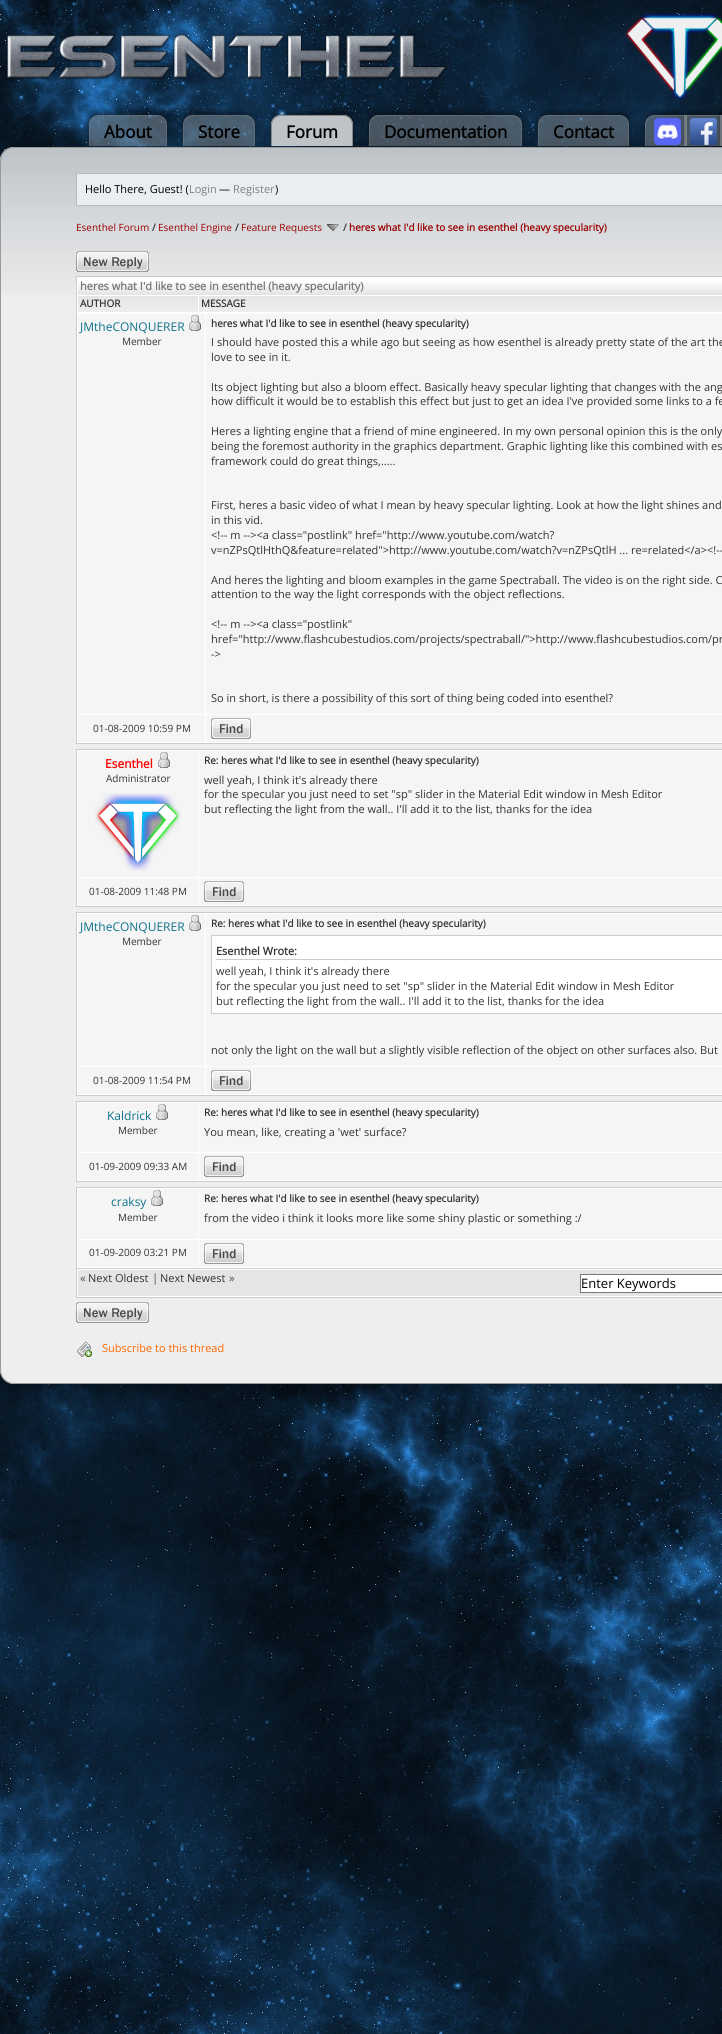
#include <cairo.h>
#include <math.h>
#include <stddef.h>


static void rgb(cairo_t *cr, int r, int g, int b)
{
	cairo_set_source_rgb(cr, r / 255.0, g / 255.0, b / 255.0);
}

static void face(cairo_t *cr, const char *family, double size, int italic, int bold)
{
	cairo_select_font_face(cr, family, italic ? CAIRO_FONT_SLANT_ITALIC : CAIRO_FONT_SLANT_NORMAL,
		bold ? CAIRO_FONT_WEIGHT_BOLD : CAIRO_FONT_WEIGHT_NORMAL);
	cairo_set_font_size(cr, size);
}

static void label(cairo_t *cr, double x, double y, const char *s)
{
	cairo_move_to(cr, x, y);
	cairo_show_text(cr, s);
}

static void rect(cairo_t *cr, double x, double y, double w, double h)
{
	cairo_rectangle(cr, x, y, w, h);
	cairo_fill(cr);
}

static void rrect(cairo_t *cr, double x, double y, double w, double h, double r)
{
	cairo_new_sub_path(cr);
	cairo_arc(cr, x + w - r, y + h - r, r, 0, M_PI / 2);
	cairo_arc(cr, x + r, y + h - r, r, M_PI / 2, M_PI);
	cairo_arc(cr, x + r, y + r, r, M_PI, 1.5 * M_PI);
	cairo_arc(cr, x + w - r, y + r, r, 1.5 * M_PI, 2 * M_PI);
	cairo_close_path(cr);
}

static void soft_shadow(cairo_t *cr, double x, double y, double w, double h, double r, double blur, double alpha)
{
	cairo_push_group_with_content(cr, CAIRO_CONTENT_ALPHA);
	cairo_set_operator(cr, CAIRO_OPERATOR_SOURCE);
	for (int i = 15; i >= -15 && fmin(w, h) + blur * i / 3 > 0; i -= 2) {
		double e = blur * i / 6;
		cairo_set_source_rgba(cr, 0, 0, 0, alpha * erfc((i - 1) / 8.5) / 2);
		rrect(cr, x - e, y - e, w + 2 * e, h + 2 * e, fmax(0, fmin(r + e + blur * .6, fmin(w, h) / 2 + e)));
		cairo_fill(cr);
	}
	cairo_pattern_t *soft = cairo_pop_group(cr);
	cairo_mask(cr, soft);
	cairo_pattern_destroy(soft);
}

static void image(cairo_t *cr, const char *path, double x, double y, double w, double h)
{
	cairo_surface_t *image = cairo_image_surface_create_from_png(path);
	cairo_save(cr);
	cairo_set_source_surface(cr, image, x, y);
	cairo_rectangle(cr, x, y, w, h);
	cairo_fill(cr);
	cairo_restore(cr);
	cairo_surface_destroy(image);
}

static void draw(cairo_t *cr) {
	rgb(cr, 255, 255, 255);
	cairo_paint(cr);
	image(cr, "image0.png", 0, 0, 722, 2034);
	image(cr, "image1.png", 6, 33, 441, 47);
	image(cr, "image2.png", 625, 13, 97, 88);
	rgb(cr, 0, 0, 0);
	soft_shadow(cr, -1, 146, 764, 1245, 18, 7.5, 0.4);
	rgb(cr, 238, 238, 238);
	rrect(cr, 0, 147, 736, 1237, 14);
	cairo_fill(cr);
	image(cr, "image5.png", 0, 148, 722, 147);
	rrect(cr, 0.5, 147.5, 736, 1236, 13.5);
	rgb(cr, 153, 153, 153);
	cairo_set_line_width(cr, 1);
	cairo_stroke(cr);
	cairo_save(cr);
	cairo_set_fill_rule(cr, CAIRO_FILL_RULE_EVEN_ODD);
	cairo_new_path(cr);
	cairo_move_to(cr, 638, 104);
	cairo_line_to(cr, 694, 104);
	cairo_line_to(cr, 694, 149);
	cairo_line_to(cr, 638, 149);
	cairo_close_path(cr);
	cairo_move_to(cr, 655, 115);
	cairo_line_to(cr, 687, 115);
	cairo_line_to(cr, 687, 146);
	cairo_line_to(cr, 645, 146);
	cairo_line_to(cr, 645, 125);
	cairo_curve_to(cr, 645, 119.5, 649.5, 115, 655, 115);
	cairo_close_path(cr);
	cairo_clip(cr);
	rgb(cr, 0, 0, 0);
	soft_shadow(cr, 645, 111, 42, 31, 10, 2, 0.3);
	cairo_restore(cr);
	cairo_set_source_rgba(cr, 0.647, 0.667, 0.682, 0.4);
	cairo_new_path(cr);
	cairo_move_to(cr, 655, 115);
	cairo_line_to(cr, 687, 115);
	cairo_line_to(cr, 687, 146);
	cairo_line_to(cr, 645, 146);
	cairo_line_to(cr, 645, 125);
	cairo_curve_to(cr, 645, 119.5, 649.5, 115, 655, 115);
	cairo_close_path(cr);
	cairo_fill(cr);
	cairo_set_source_rgba(cr, 0.467, 0.467, 0.467, 0.55);
	cairo_set_fill_rule(cr, CAIRO_FILL_RULE_EVEN_ODD);
	cairo_new_path(cr);
	cairo_move_to(cr, 655, 115);
	cairo_line_to(cr, 687, 115);
	cairo_line_to(cr, 687, 146);
	cairo_line_to(cr, 645, 146);
	cairo_line_to(cr, 645, 125);
	cairo_curve_to(cr, 645, 119, 649, 115, 655, 115);
	cairo_close_path(cr);
	cairo_move_to(cr, 655, 116);
	cairo_line_to(cr, 686, 116);
	cairo_line_to(cr, 686, 146);
	cairo_line_to(cr, 646, 146);
	cairo_line_to(cr, 646, 125);
	cairo_curve_to(cr, 646, 120, 650, 116, 655, 116);
	cairo_close_path(cr);
	cairo_fill(cr);
	image(cr, "image3.png", 654, 118, 27, 27);
	cairo_save(cr);
	cairo_new_path(cr);
	cairo_move_to(cr, 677, 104);
	cairo_line_to(cr, 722, 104);
	cairo_line_to(cr, 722, 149);
	cairo_line_to(cr, 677, 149);
	cairo_close_path(cr);
	cairo_move_to(cr, 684, 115);
	cairo_line_to(cr, 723, 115);
	cairo_line_to(cr, 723, 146);
	cairo_line_to(cr, 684, 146);
	cairo_close_path(cr);
	cairo_clip(cr);
	rgb(cr, 0, 0, 0);
	soft_shadow(cr, 684, 111, 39, 31, 0, 2, 0.3);
	cairo_restore(cr);
	cairo_set_source_rgba(cr, 0.647, 0.667, 0.682, 0.4);
	rect(cr, 684, 115, 38, 31);
	cairo_set_source_rgba(cr, 0.467, 0.467, 0.467, 0.55);
	cairo_set_fill_rule(cr, CAIRO_FILL_RULE_WINDING);
	cairo_new_path(cr);
	cairo_move_to(cr, 684, 115);
	cairo_line_to(cr, 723, 115);
	cairo_line_to(cr, 722, 116);
	cairo_line_to(cr, 685, 116);
	cairo_close_path(cr);
	cairo_fill(cr);
	image(cr, "image4.png", 690, 118, 27, 27);
	cairo_save(cr);
	cairo_set_fill_rule(cr, CAIRO_FILL_RULE_EVEN_ODD);
	cairo_new_path(cr);
	cairo_move_to(cr, 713, 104);
	cairo_line_to(cr, 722, 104);
	cairo_line_to(cr, 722, 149);
	cairo_line_to(cr, 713, 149);
	cairo_close_path(cr);
	cairo_move_to(cr, 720, 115);
	cairo_line_to(cr, 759, 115);
	cairo_line_to(cr, 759, 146);
	cairo_line_to(cr, 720, 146);
	cairo_close_path(cr);
	cairo_clip(cr);
	rgb(cr, 0, 0, 0);
	soft_shadow(cr, 720, 111, 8, 31, 0, 2, 0.3);
	cairo_restore(cr);
	cairo_new_path(cr);
	cairo_move_to(cr, 684, 146);
	cairo_line_to(cr, 684, 115);
	cairo_line_to(cr, 685, 116);
	cairo_line_to(cr, 685, 146);
	cairo_close_path(cr);
	cairo_fill(cr);
	cairo_set_source_rgba(cr, 0.647, 0.667, 0.682, 0.4);
	rect(cr, 720, 115, 2, 31);
	rgb(cr, 122, 124, 126);
	cairo_new_path(cr);
	cairo_move_to(cr, 720, 115);
	cairo_line_to(cr, 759, 115);
	cairo_line_to(cr, 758, 116);
	cairo_line_to(cr, 721, 116);
	cairo_close_path(cr);
	cairo_fill(cr);
	cairo_save(cr);
	cairo_set_fill_rule(cr, CAIRO_FILL_RULE_EVEN_ODD);
	cairo_new_path(cr);
	cairo_move_to(cr, 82, 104);
	cairo_line_to(cr, 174, 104);
	cairo_line_to(cr, 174, 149);
	cairo_line_to(cr, 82, 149);
	cairo_close_path(cr);
	cairo_move_to(cr, 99, 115);
	cairo_line_to(cr, 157, 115);
	cairo_curve_to(cr, 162.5, 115, 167, 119.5, 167, 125);
	cairo_line_to(cr, 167, 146);
	cairo_line_to(cr, 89, 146);
	cairo_line_to(cr, 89, 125);
	cairo_curve_to(cr, 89, 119.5, 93.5, 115, 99, 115);
	cairo_close_path(cr);
	cairo_clip(cr);
	rgb(cr, 0, 0, 0);
	soft_shadow(cr, 89, 111, 78, 31, 10, 2, 0.3);
	cairo_restore(cr);
	cairo_set_source_rgba(cr, 0.647, 0.667, 0.682, 0.4);
	cairo_new_path(cr);
	cairo_move_to(cr, 99, 115);
	cairo_line_to(cr, 157, 115);
	cairo_curve_to(cr, 162.5, 115, 167, 119.5, 167, 125);
	cairo_line_to(cr, 167, 146);
	cairo_line_to(cr, 89, 146);
	cairo_line_to(cr, 89, 125);
	cairo_curve_to(cr, 89, 119.5, 93.5, 115, 99, 115);
	cairo_close_path(cr);
	cairo_fill(cr);
	cairo_set_source_rgba(cr, 0.467, 0.467, 0.467, 0.55);
	cairo_set_fill_rule(cr, CAIRO_FILL_RULE_EVEN_ODD);
	cairo_new_path(cr);
	cairo_move_to(cr, 99, 115);
	cairo_line_to(cr, 157, 115);
	cairo_curve_to(cr, 163, 115, 167, 119, 167, 125);
	cairo_line_to(cr, 167, 146);
	cairo_line_to(cr, 89, 146);
	cairo_line_to(cr, 89, 125);
	cairo_curve_to(cr, 89, 119, 93, 115, 99, 115);
	cairo_close_path(cr);
	cairo_move_to(cr, 99, 116);
	cairo_line_to(cr, 157, 116);
	cairo_curve_to(cr, 162, 116, 166, 120, 166, 125);
	cairo_line_to(cr, 166, 146);
	cairo_line_to(cr, 90, 146);
	cairo_line_to(cr, 90, 125);
	cairo_curve_to(cr, 90, 120, 94, 116, 99, 116);
	cairo_close_path(cr);
	cairo_fill(cr);
	face(cr, "Open Sans", 17, 0, 1);
	rgb(cr, 0, 0, 0);
	label(cr, 104, 138, "About");
	cairo_save(cr);
	cairo_new_path(cr);
	cairo_move_to(cr, 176, 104);
	cairo_line_to(cr, 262, 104);
	cairo_line_to(cr, 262, 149);
	cairo_line_to(cr, 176, 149);
	cairo_close_path(cr);
	cairo_move_to(cr, 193, 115);
	cairo_line_to(cr, 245, 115);
	cairo_curve_to(cr, 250.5, 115, 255, 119.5, 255, 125);
	cairo_line_to(cr, 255, 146);
	cairo_line_to(cr, 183, 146);
	cairo_line_to(cr, 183, 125);
	cairo_curve_to(cr, 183, 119.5, 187.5, 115, 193, 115);
	cairo_close_path(cr);
	cairo_clip(cr);
	rgb(cr, 0, 0, 0);
	soft_shadow(cr, 183, 111, 72, 31, 10, 2, 0.3);
	cairo_restore(cr);
	cairo_set_source_rgba(cr, 0.647, 0.667, 0.682, 0.4);
	cairo_new_path(cr);
	cairo_move_to(cr, 193, 115);
	cairo_line_to(cr, 245, 115);
	cairo_curve_to(cr, 250.5, 115, 255, 119.5, 255, 125);
	cairo_line_to(cr, 255, 146);
	cairo_line_to(cr, 183, 146);
	cairo_line_to(cr, 183, 125);
	cairo_curve_to(cr, 183, 119.5, 187.5, 115, 193, 115);
	cairo_close_path(cr);
	cairo_fill(cr);
	cairo_set_source_rgba(cr, 0.467, 0.467, 0.467, 0.55);
	cairo_new_path(cr);
	cairo_move_to(cr, 193, 115);
	cairo_line_to(cr, 245, 115);
	cairo_curve_to(cr, 251, 115, 255, 119, 255, 125);
	cairo_line_to(cr, 255, 146);
	cairo_line_to(cr, 183, 146);
	cairo_line_to(cr, 183, 125);
	cairo_curve_to(cr, 183, 119, 187, 115, 193, 115);
	cairo_close_path(cr);
	cairo_move_to(cr, 193, 116);
	cairo_line_to(cr, 245, 116);
	cairo_curve_to(cr, 250, 116, 254, 120, 254, 125);
	cairo_line_to(cr, 254, 146);
	cairo_line_to(cr, 184, 146);
	cairo_line_to(cr, 184, 125);
	cairo_curve_to(cr, 184, 120, 188, 116, 193, 116);
	cairo_close_path(cr);
	cairo_fill(cr);
	rgb(cr, 0, 0, 0);
	label(cr, 198, 138, "Store");
	rgb(cr, 0, 0, 0);
	soft_shadow(cr, 271, 111, 82, 31, 10, 2, 0.3);
	rgb(cr, 190, 195, 199);
	cairo_new_path(cr);
	cairo_move_to(cr, 281, 115);
	cairo_line_to(cr, 343, 115);
	cairo_curve_to(cr, 348.5, 115, 353, 119.5, 353, 125);
	cairo_line_to(cr, 353, 146);
	cairo_line_to(cr, 271, 146);
	cairo_line_to(cr, 271, 125);
	cairo_curve_to(cr, 271, 119.5, 275.5, 115, 281, 115);
	cairo_close_path(cr);
	cairo_fill(cr);
	rgb(cr, 136, 136, 136);
	cairo_new_path(cr);
	cairo_move_to(cr, 281, 115);
	cairo_line_to(cr, 343, 115);
	cairo_curve_to(cr, 349, 115, 353, 119, 353, 125);
	cairo_line_to(cr, 353, 146);
	cairo_line_to(cr, 271, 146);
	cairo_line_to(cr, 271, 125);
	cairo_curve_to(cr, 271, 119, 275, 115, 281, 115);
	cairo_close_path(cr);
	cairo_move_to(cr, 281, 116);
	cairo_line_to(cr, 343, 116);
	cairo_curve_to(cr, 348, 116, 352, 120, 352, 125);
	cairo_line_to(cr, 352, 146);
	cairo_line_to(cr, 272, 146);
	cairo_line_to(cr, 272, 125);
	cairo_curve_to(cr, 272, 120, 276, 116, 281, 116);
	cairo_close_path(cr);
	cairo_fill(cr);
	rgb(cr, 0, 0, 0);
	label(cr, 286, 138, "Forum");
	cairo_save(cr);
	cairo_new_path(cr);
	cairo_move_to(cr, 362, 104);
	cairo_line_to(cr, 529, 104);
	cairo_line_to(cr, 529, 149);
	cairo_line_to(cr, 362, 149);
	cairo_close_path(cr);
	cairo_move_to(cr, 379, 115);
	cairo_line_to(cr, 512, 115);
	cairo_curve_to(cr, 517.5, 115, 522, 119.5, 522, 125);
	cairo_line_to(cr, 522, 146);
	cairo_line_to(cr, 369, 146);
	cairo_line_to(cr, 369, 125);
	cairo_curve_to(cr, 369, 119.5, 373.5, 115, 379, 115);
	cairo_close_path(cr);
	cairo_clip(cr);
	rgb(cr, 0, 0, 0);
	soft_shadow(cr, 369, 111, 153, 31, 10, 2, 0.3);
	cairo_restore(cr);
	cairo_set_source_rgba(cr, 0.647, 0.667, 0.682, 0.4);
	cairo_new_path(cr);
	cairo_move_to(cr, 379, 115);
	cairo_line_to(cr, 512, 115);
	cairo_curve_to(cr, 517.5, 115, 522, 119.5, 522, 125);
	cairo_line_to(cr, 522, 146);
	cairo_line_to(cr, 369, 146);
	cairo_line_to(cr, 369, 125);
	cairo_curve_to(cr, 369, 119.5, 373.5, 115, 379, 115);
	cairo_close_path(cr);
	cairo_fill(cr);
	cairo_set_source_rgba(cr, 0.467, 0.467, 0.467, 0.55);
	cairo_new_path(cr);
	cairo_move_to(cr, 379, 115);
	cairo_line_to(cr, 512, 115);
	cairo_curve_to(cr, 518, 115, 522, 119, 522, 125);
	cairo_line_to(cr, 522, 146);
	cairo_line_to(cr, 369, 146);
	cairo_line_to(cr, 369, 125);
	cairo_curve_to(cr, 369, 119, 373, 115, 379, 115);
	cairo_close_path(cr);
	cairo_move_to(cr, 379, 116);
	cairo_line_to(cr, 512, 116);
	cairo_curve_to(cr, 517, 116, 521, 120, 521, 125);
	cairo_line_to(cr, 521, 146);
	cairo_line_to(cr, 370, 146);
	cairo_line_to(cr, 370, 125);
	cairo_curve_to(cr, 370, 120, 374, 116, 379, 116);
	cairo_close_path(cr);
	cairo_fill(cr);
	rgb(cr, 0, 0, 0);
	label(cr, 384, 138, "Documentation");
	cairo_save(cr);
	cairo_new_path(cr);
	cairo_move_to(cr, 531, 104);
	cairo_line_to(cr, 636, 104);
	cairo_line_to(cr, 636, 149);
	cairo_line_to(cr, 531, 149);
	cairo_close_path(cr);
	cairo_move_to(cr, 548, 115);
	cairo_line_to(cr, 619, 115);
	cairo_curve_to(cr, 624.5, 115, 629, 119.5, 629, 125);
	cairo_line_to(cr, 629, 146);
	cairo_line_to(cr, 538, 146);
	cairo_line_to(cr, 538, 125);
	cairo_curve_to(cr, 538, 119.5, 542.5, 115, 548, 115);
	cairo_close_path(cr);
	cairo_clip(cr);
	rgb(cr, 0, 0, 0);
	soft_shadow(cr, 538, 111, 91, 31, 10, 2, 0.3);
	cairo_restore(cr);
	cairo_set_source_rgba(cr, 0.647, 0.667, 0.682, 0.4);
	cairo_new_path(cr);
	cairo_move_to(cr, 548, 115);
	cairo_line_to(cr, 619, 115);
	cairo_curve_to(cr, 624.5, 115, 629, 119.5, 629, 125);
	cairo_line_to(cr, 629, 146);
	cairo_line_to(cr, 538, 146);
	cairo_line_to(cr, 538, 125);
	cairo_curve_to(cr, 538, 119.5, 542.5, 115, 548, 115);
	cairo_close_path(cr);
	cairo_fill(cr);
	cairo_set_source_rgba(cr, 0.467, 0.467, 0.467, 0.55);
	cairo_new_path(cr);
	cairo_move_to(cr, 548, 115);
	cairo_line_to(cr, 619, 115);
	cairo_curve_to(cr, 625, 115, 629, 119, 629, 125);
	cairo_line_to(cr, 629, 146);
	cairo_line_to(cr, 538, 146);
	cairo_line_to(cr, 538, 125);
	cairo_curve_to(cr, 538, 119, 542, 115, 548, 115);
	cairo_close_path(cr);
	cairo_move_to(cr, 548, 116);
	cairo_line_to(cr, 619, 116);
	cairo_curve_to(cr, 624, 116, 628, 120, 628, 125);
	cairo_line_to(cr, 628, 146);
	cairo_line_to(cr, 539, 146);
	cairo_line_to(cr, 539, 125);
	cairo_curve_to(cr, 539, 120, 543, 116, 548, 116);
	cairo_close_path(cr);
	cairo_fill(cr);
	rgb(cr, 0, 0, 0);
	label(cr, 553, 138, "Contact");
	cairo_set_source_rgba(cr, 0.467, 0.467, 0.467, 0.55);
	cairo_set_fill_rule(cr, CAIRO_FILL_RULE_WINDING);
	cairo_new_path(cr);
	cairo_move_to(cr, 720, 146);
	cairo_line_to(cr, 720, 115);
	cairo_line_to(cr, 721, 116);
	cairo_line_to(cr, 721, 146);
	cairo_close_path(cr);
	cairo_fill(cr);
	rgb(cr, 234, 238, 240);
	cairo_rectangle(cr, 76.5, 173.5, 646, 32);
	cairo_fill_preserve(cr);
	rgb(cr, 187, 187, 187);
	cairo_stroke(cr);
	face(cr, "Open Sans", 11, 0, 0);
	rgb(cr, 0, 0, 0);
	label(cr, 85, 193, "Hello There, Guest! (");
	rgb(cr, 128, 128, 128);
	label(cr, 189, 193, "Login");
	rgb(cr, 0, 0, 0);
	label(cr, 219, 193, "—");
	rgb(cr, 128, 128, 128);
	label(cr, 233, 193, "Register");
	rgb(cr, 0, 0, 0);
	label(cr, 275, 193, ")");
	face(cr, "Open Sans", 10, 0, 0);
	rgb(cr, 153, 0, 0);
	label(cr, 76, 231, "Esenthel Forum");
	face(cr, "Open Sans", 10, 0, 1);
	rgb(cr, 51, 51, 51);
	label(cr, 152, 231, "/");
	face(cr, "Open Sans", 10, 0, 0);
	rgb(cr, 153, 0, 0);
	label(cr, 158, 231, "Esenthel Engine");
	face(cr, "Open Sans", 10, 0, 1);
	rgb(cr, 51, 51, 51);
	label(cr, 235, 231, "/");
	face(cr, "Open Sans", 10, 0, 0);
	rgb(cr, 153, 0, 0);
	label(cr, 241, 231, "Feature Requests");
	image(cr, "image6.png", 327, 224, 12, 7);
	face(cr, "Open Sans", 10, 0, 1);
	rgb(cr, 51, 51, 51);
	label(cr, 343, 231, "/");
	rgb(cr, 153, 0, 0);
	label(cr, 349, 231, "heres what I'd like to see in esenthel (heavy specularity)");
	image(cr, "image7.png", 76, 251, 73, 21);
	rgb(cr, 255, 255, 255);
	rect(cr, 77, 277, 645, 466);
	rgb(cr, 204, 204, 204);
	rect(cr, 76, 276, 646, 1);
	rect(cr, 76, 276, 1, 37);
	image(cr, "image8.png", 78, 282, 644, 13);
	face(cr, "Open Sans", 11, 0, 1);
	rgb(cr, 117, 121, 120);
	label(cr, 80, 290, "heres what I'd like to see in esenthel (heavy specularity)");
	image(cr, "image9.png", 78, 296, 120, 16);
	face(cr, "Open Sans", 10, 0, 1);
	rgb(cr, 51, 51, 51);
	label(cr, 80, 307, "AUTHOR");
	image(cr, "image10.png", 199, 296, 523, 16);
	label(cr, 201, 307, "MESSAGE");
	rgb(cr, 204, 204, 204);
	rect(cr, 76, 743, 646, 1);
	rect(cr, 76, 313, 1, 431);
	rgb(cr, 245, 245, 245);
	rect(cr, 78, 314, 127, 400);
	face(cr, "Open Sans", 12, 0, 0);
	rgb(cr, 12, 114, 139);
	label(cr, 80, 331, "JMtheCONQUERER");
	image(cr, "image11.png", 189, 315, 12, 16);
	face(cr, "Open Sans", 10, 0, 0);
	rgb(cr, 51, 51, 51);
	label(cr, 122, 345, "Member");
	rgb(cr, 245, 245, 245);
	rect(cr, 206, 314, 516, 400);
	face(cr, "Open Sans", 10, 0, 1);
	rgb(cr, 51, 51, 51);
	label(cr, 211, 327, "heres what I'd like to see in esenthel (heavy specularity)");
	face(cr, "Open Sans", 11, 0, 0);
	label(cr, 211, 346, "I should have posted this a while ago but seeing as how esenthel is already pretty state of the art the");
	label(cr, 211, 361, "love to see in it.");
	label(cr, 211, 391, "Its object lighting but also a bloom effect. Basically heavy specular lighting that changes with the ang");
	label(cr, 211, 405, "how difficult it would be to establish this effect but just to get an idea I've provided some links to a fe");
	label(cr, 211, 435, "Heres a lighting engine that a friend of mine engineered. In my own personal opinion this is the only");
	label(cr, 211, 450, "being the foremost authority in the graphics department. Graphic lighting like this combined with es");
	label(cr, 211, 465, "framework could do great things,.....");
	label(cr, 211, 509, "First, heres a basic video of what I mean by heavy specular lighting. Look at how the light shines and");
	label(cr, 211, 524, "in this vid.");
	label(cr, 211, 539, "<!-- m --><a class=\"postlink\" href=\"http://www.youtube.com/watch?");
	label(cr, 211, 554, "v=nZPsQtlHthQ&feature=related\">http://www.youtube.com/watch?v=nZPsQtlH ... re=related</a><!--");
	label(cr, 211, 584, "And heres the lighting and bloom examples in the game Spectraball. The video is on the right side. C");
	label(cr, 211, 598, "attention to the way the light corresponds with the object reflections.");
	label(cr, 211, 628, "<!-- m --><a class=\"postlink\"");
	label(cr, 211, 643, "href=\"http://www.flashcubestudios.com/projects/spectraball/\">http://www.flashcubestudios.com/pr");
	label(cr, 211, 658, "->");
	label(cr, 211, 702, "So in short, is there a possibility of this sort of thing being coded into esenthel?");
	rgb(cr, 245, 245, 245);
	rect(cr, 78, 715, 127, 27);
	face(cr, "Open Sans", 10, 0, 0);
	rgb(cr, 51, 51, 51);
	label(cr, 93, 732, "01-08-2009 10:59 PM");
	rgb(cr, 245, 245, 245);
	rect(cr, 206, 715, 516, 27);
	image(cr, "image12.png", 211, 718, 40, 21);
	rgb(cr, 255, 255, 255);
	cairo_rectangle(cr, 76.5, 749.5, 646, 157);
	cairo_fill_preserve(cr);
	rgb(cr, 204, 204, 204);
	cairo_stroke(cr);
	rgb(cr, 245, 245, 245);
	rect(cr, 78, 751, 120, 126);
	face(cr, "Open Sans", 12, 0, 1);
	rgb(cr, 255, 0, 0);
	label(cr, 105, 768, "Esenthel");
	image(cr, "image11.png", 158, 752, 12, 16);
	face(cr, "Open Sans", 10, 0, 0);
	rgb(cr, 51, 51, 51);
	label(cr, 106, 782, "Administrator");
	image(cr, "image13.png", 95, 793, 86, 78);
	rgb(cr, 245, 245, 245);
	rect(cr, 199, 751, 523, 126);
	face(cr, "Open Sans", 10, 0, 1);
	rgb(cr, 51, 51, 51);
	label(cr, 204, 764, "Re: heres what I'd like to see in esenthel (heavy specularity)");
	face(cr, "Open Sans", 11, 0, 0);
	label(cr, 204, 784, "well yeah, I think it's already there");
	label(cr, 204, 798, "for the specular you just need to set \"sp\" slider in the Material Edit window in Mesh Editor");
	label(cr, 204, 813, "but reflecting the light from the wall.. I'll add it to the list, thanks for the idea");
	rgb(cr, 245, 245, 245);
	rect(cr, 78, 878, 120, 27);
	face(cr, "Open Sans", 10, 0, 0);
	rgb(cr, 51, 51, 51);
	label(cr, 89, 895, "01-08-2009 11:48 PM");
	rgb(cr, 245, 245, 245);
	rect(cr, 199, 878, 523, 27);
	image(cr, "image12.png", 204, 881, 40, 21);
	rgb(cr, 255, 255, 255);
	cairo_rectangle(cr, 76.5, 912.5, 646, 183);
	cairo_fill_preserve(cr);
	rgb(cr, 204, 204, 204);
	cairo_stroke(cr);
	rgb(cr, 245, 245, 245);
	rect(cr, 78, 914, 127, 152);
	face(cr, "Open Sans", 12, 0, 0);
	rgb(cr, 12, 114, 139);
	label(cr, 80, 931, "JMtheCONQUERER");
	image(cr, "image11.png", 189, 915, 12, 16);
	face(cr, "Open Sans", 10, 0, 0);
	rgb(cr, 51, 51, 51);
	label(cr, 122, 945, "Member");
	rgb(cr, 245, 245, 245);
	rect(cr, 206, 914, 516, 152);
	face(cr, "Open Sans", 10, 0, 1);
	rgb(cr, 51, 51, 51);
	label(cr, 211, 927, "Re: heres what I'd like to see in esenthel (heavy specularity)");
	rgb(cr, 255, 255, 255);
	cairo_rectangle(cr, 211.5, 935.5, 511, 78);
	cairo_fill_preserve(cr);
	rgb(cr, 204, 204, 204);
	cairo_stroke(cr);
	rect(cr, 216, 959, 506, 1);
	face(cr, "Open Sans", 11, 0, 1);
	rgb(cr, 51, 51, 51);
	label(cr, 216, 955, "Esenthel Wrote:");
	face(cr, "Open Sans", 11, 0, 0);
	label(cr, 216, 975, "well yeah, I think it's already there");
	label(cr, 216, 990, "for the specular you just need to set \"sp\" slider in the Material Edit window in Mesh Editor");
	label(cr, 216, 1005, "but reflecting the light from the wall.. I'll add it to the list, thanks for the idea");
	label(cr, 211, 1054, "not only the light on the wall but a slightly visible reflection of the object on other surfaces also. But");
	rgb(cr, 245, 245, 245);
	rect(cr, 78, 1067, 127, 27);
	face(cr, "Open Sans", 10, 0, 0);
	rgb(cr, 51, 51, 51);
	label(cr, 93, 1084, "01-08-2009 11:54 PM");
	rgb(cr, 245, 245, 245);
	rect(cr, 206, 1067, 516, 27);
	image(cr, "image12.png", 211, 1070, 40, 21);
	rgb(cr, 255, 255, 255);
	cairo_rectangle(cr, 76.5, 1101.5, 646, 80);
	cairo_fill_preserve(cr);
	rgb(cr, 204, 204, 204);
	cairo_stroke(cr);
	rgb(cr, 245, 245, 245);
	rect(cr, 78, 1103, 120, 49);
	face(cr, "Open Sans", 12, 0, 0);
	rgb(cr, 12, 114, 139);
	label(cr, 107, 1120, "Kaldrick");
	image(cr, "image11.png", 156, 1104, 12, 16);
	face(cr, "Open Sans", 10, 0, 0);
	rgb(cr, 51, 51, 51);
	label(cr, 118, 1134, "Member");
	rgb(cr, 245, 245, 245);
	rect(cr, 199, 1103, 523, 49);
	face(cr, "Open Sans", 10, 0, 1);
	rgb(cr, 51, 51, 51);
	label(cr, 204, 1116, "Re: heres what I'd like to see in esenthel (heavy specularity)");
	face(cr, "Open Sans", 11, 0, 0);
	label(cr, 204, 1136, "You mean, like, creating a 'wet' surface?");
	rgb(cr, 245, 245, 245);
	rect(cr, 78, 1153, 120, 27);
	face(cr, "Open Sans", 10, 0, 0);
	rgb(cr, 51, 51, 51);
	label(cr, 89, 1170, "01-09-2009 09:33 AM");
	rgb(cr, 245, 245, 245);
	rect(cr, 199, 1153, 523, 27);
	image(cr, "image12.png", 204, 1156, 40, 21);
	rgb(cr, 255, 255, 255);
	cairo_rectangle(cr, 76.5, 1187.5, 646, 81);
	cairo_fill_preserve(cr);
	rgb(cr, 204, 204, 204);
	cairo_stroke(cr);
	rgb(cr, 245, 245, 245);
	rect(cr, 78, 1189, 120, 50);
	face(cr, "Open Sans", 12, 0, 0);
	rgb(cr, 12, 114, 139);
	label(cr, 111, 1206, "craksy");
	image(cr, "image11.png", 151, 1190, 12, 16);
	face(cr, "Open Sans", 10, 0, 0);
	rgb(cr, 51, 51, 51);
	label(cr, 118, 1221, "Member");
	rgb(cr, 245, 245, 245);
	rect(cr, 199, 1189, 523, 50);
	face(cr, "Open Sans", 10, 0, 1);
	rgb(cr, 51, 51, 51);
	label(cr, 204, 1202, "Re: heres what I'd like to see in esenthel (heavy specularity)");
	face(cr, "Open Sans", 11, 0, 0);
	label(cr, 204, 1222, "from the video i think it looks more like some shiny plastic or something :/");
	rgb(cr, 245, 245, 245);
	rect(cr, 78, 1240, 120, 27);
	face(cr, "Open Sans", 10, 0, 0);
	rgb(cr, 51, 51, 51);
	label(cr, 89, 1256, "01-09-2009 03:21 PM");
	rgb(cr, 245, 245, 245);
	rect(cr, 199, 1240, 523, 27);
	image(cr, "image12.png", 204, 1243, 40, 21);
	rgb(cr, 255, 255, 255);
	rect(cr, 77, 1269, 645, 28);
	rgb(cr, 204, 204, 204);
	rect(cr, 76, 1297, 646, 1);
	rect(cr, 76, 1269, 1, 29);
	rgb(cr, 229, 229, 229);
	rect(cr, 78, 1270, 644, 26);
	face(cr, "Open Sans", 11, 0, 1);
	rgb(cr, 117, 121, 120);
	label(cr, 80, 1282, "«");
	face(cr, "Open Sans", 11, 0, 0);
	rgb(cr, 51, 51, 51);
	label(cr, 88, 1282, "Next Oldest");
	face(cr, "Open Sans", 11, 0, 1);
	rgb(cr, 117, 121, 120);
	label(cr, 152, 1282, "|");
	face(cr, "Open Sans", 11, 0, 0);
	rgb(cr, 51, 51, 51);
	label(cr, 160, 1282, "Next Newest");
	face(cr, "Open Sans", 11, 0, 1);
	rgb(cr, 117, 121, 120);
	label(cr, 229, 1282, "»");
	rgb(cr, 255, 255, 255);
	cairo_rectangle(cr, 580.5, 1274.5, 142, 18);
	cairo_fill_preserve(cr);
	rgb(cr, 117, 121, 120);
	cairo_stroke(cr);
	face(cr, "Open Sans", 13, 0, 0);
	rgb(cr, 0, 0, 0);
	label(cr, 581, 1288, "Enter Keywords");
	image(cr, "image7.png", 76, 1302, 73, 21);
	image(cr, "image14.png", 77, 1341, 15, 16);
	face(cr, "Open Sans", 11, 0, 0);
	rgb(cr, 255, 102, 0);
	label(cr, 102, 1352, "Subscribe to this thread");
}

int main(void) {
	cairo_surface_t *surface = cairo_image_surface_create(CAIRO_FORMAT_RGB24, 722, 2034);
	cairo_t *cr = cairo_create(surface);
	cairo_font_options_t *options = cairo_font_options_create();
	cairo_font_options_set_hint_metrics(options, CAIRO_HINT_METRICS_OFF);
	cairo_font_options_set_hint_style(options, CAIRO_HINT_STYLE_NONE);
	cairo_set_font_options(cr, options);
	cairo_set_miter_limit(cr, 4);
	draw(cr);
	cairo_surface_write_to_png(surface, "render.png");
	cairo_font_options_destroy(options);
	cairo_destroy(cr);
	cairo_surface_destroy(surface);
	return 0;
}
